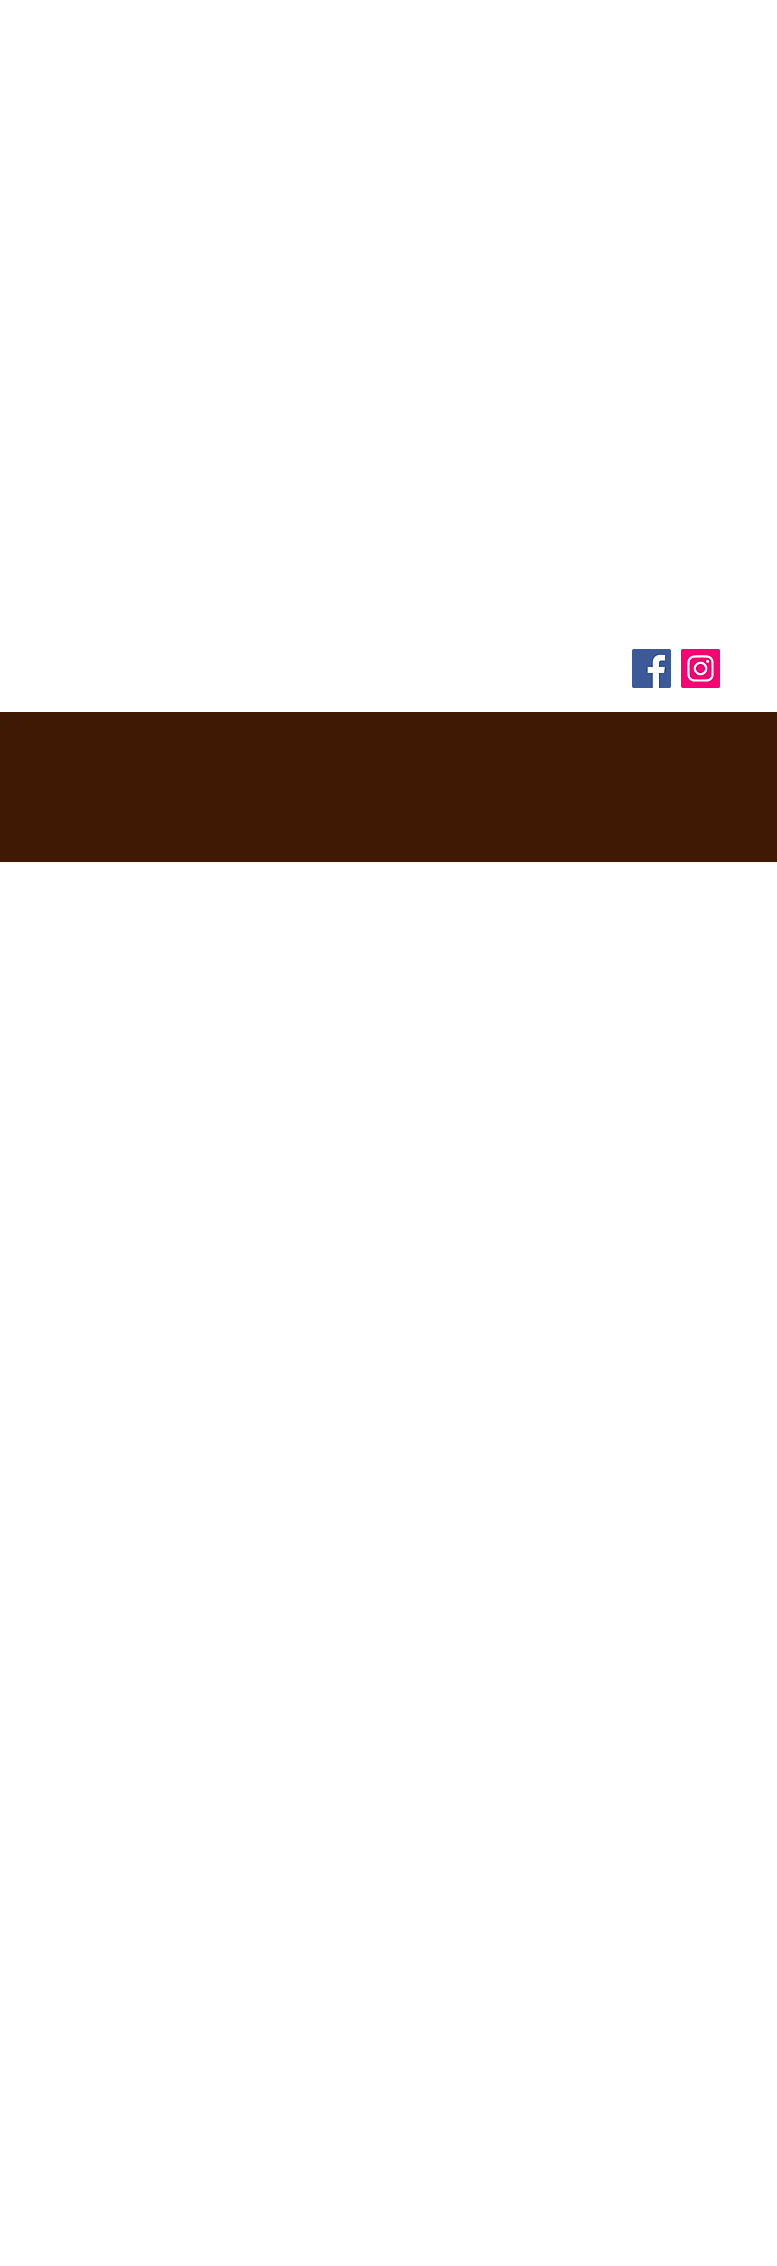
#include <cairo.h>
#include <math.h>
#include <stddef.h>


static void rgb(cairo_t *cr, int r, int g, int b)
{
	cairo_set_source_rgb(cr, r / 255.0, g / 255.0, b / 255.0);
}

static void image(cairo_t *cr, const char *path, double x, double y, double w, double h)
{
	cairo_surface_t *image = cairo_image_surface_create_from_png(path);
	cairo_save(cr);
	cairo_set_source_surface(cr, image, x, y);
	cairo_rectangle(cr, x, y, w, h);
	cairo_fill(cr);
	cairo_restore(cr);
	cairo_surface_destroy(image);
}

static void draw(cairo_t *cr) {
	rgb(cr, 255, 255, 255);
	cairo_paint(cr);
	image(cr, "image0.png", 632, 649, 39, 39);
	image(cr, "image1.png", 681, 649, 39, 39);
	image(cr, "image2.png", 0, 712, 777, 150);
}

int main(void) {
	cairo_surface_t *surface = cairo_image_surface_create(CAIRO_FORMAT_RGB24, 777, 2266);
	cairo_t *cr = cairo_create(surface);
	cairo_font_options_t *options = cairo_font_options_create();
	cairo_font_options_set_hint_metrics(options, CAIRO_HINT_METRICS_OFF);
	cairo_font_options_set_hint_style(options, CAIRO_HINT_STYLE_NONE);
	cairo_set_font_options(cr, options);
	cairo_set_miter_limit(cr, 4);
	draw(cr);
	cairo_surface_write_to_png(surface, "render.png");
	cairo_font_options_destroy(options);
	cairo_destroy(cr);
	cairo_surface_destroy(surface);
	return 0;
}
